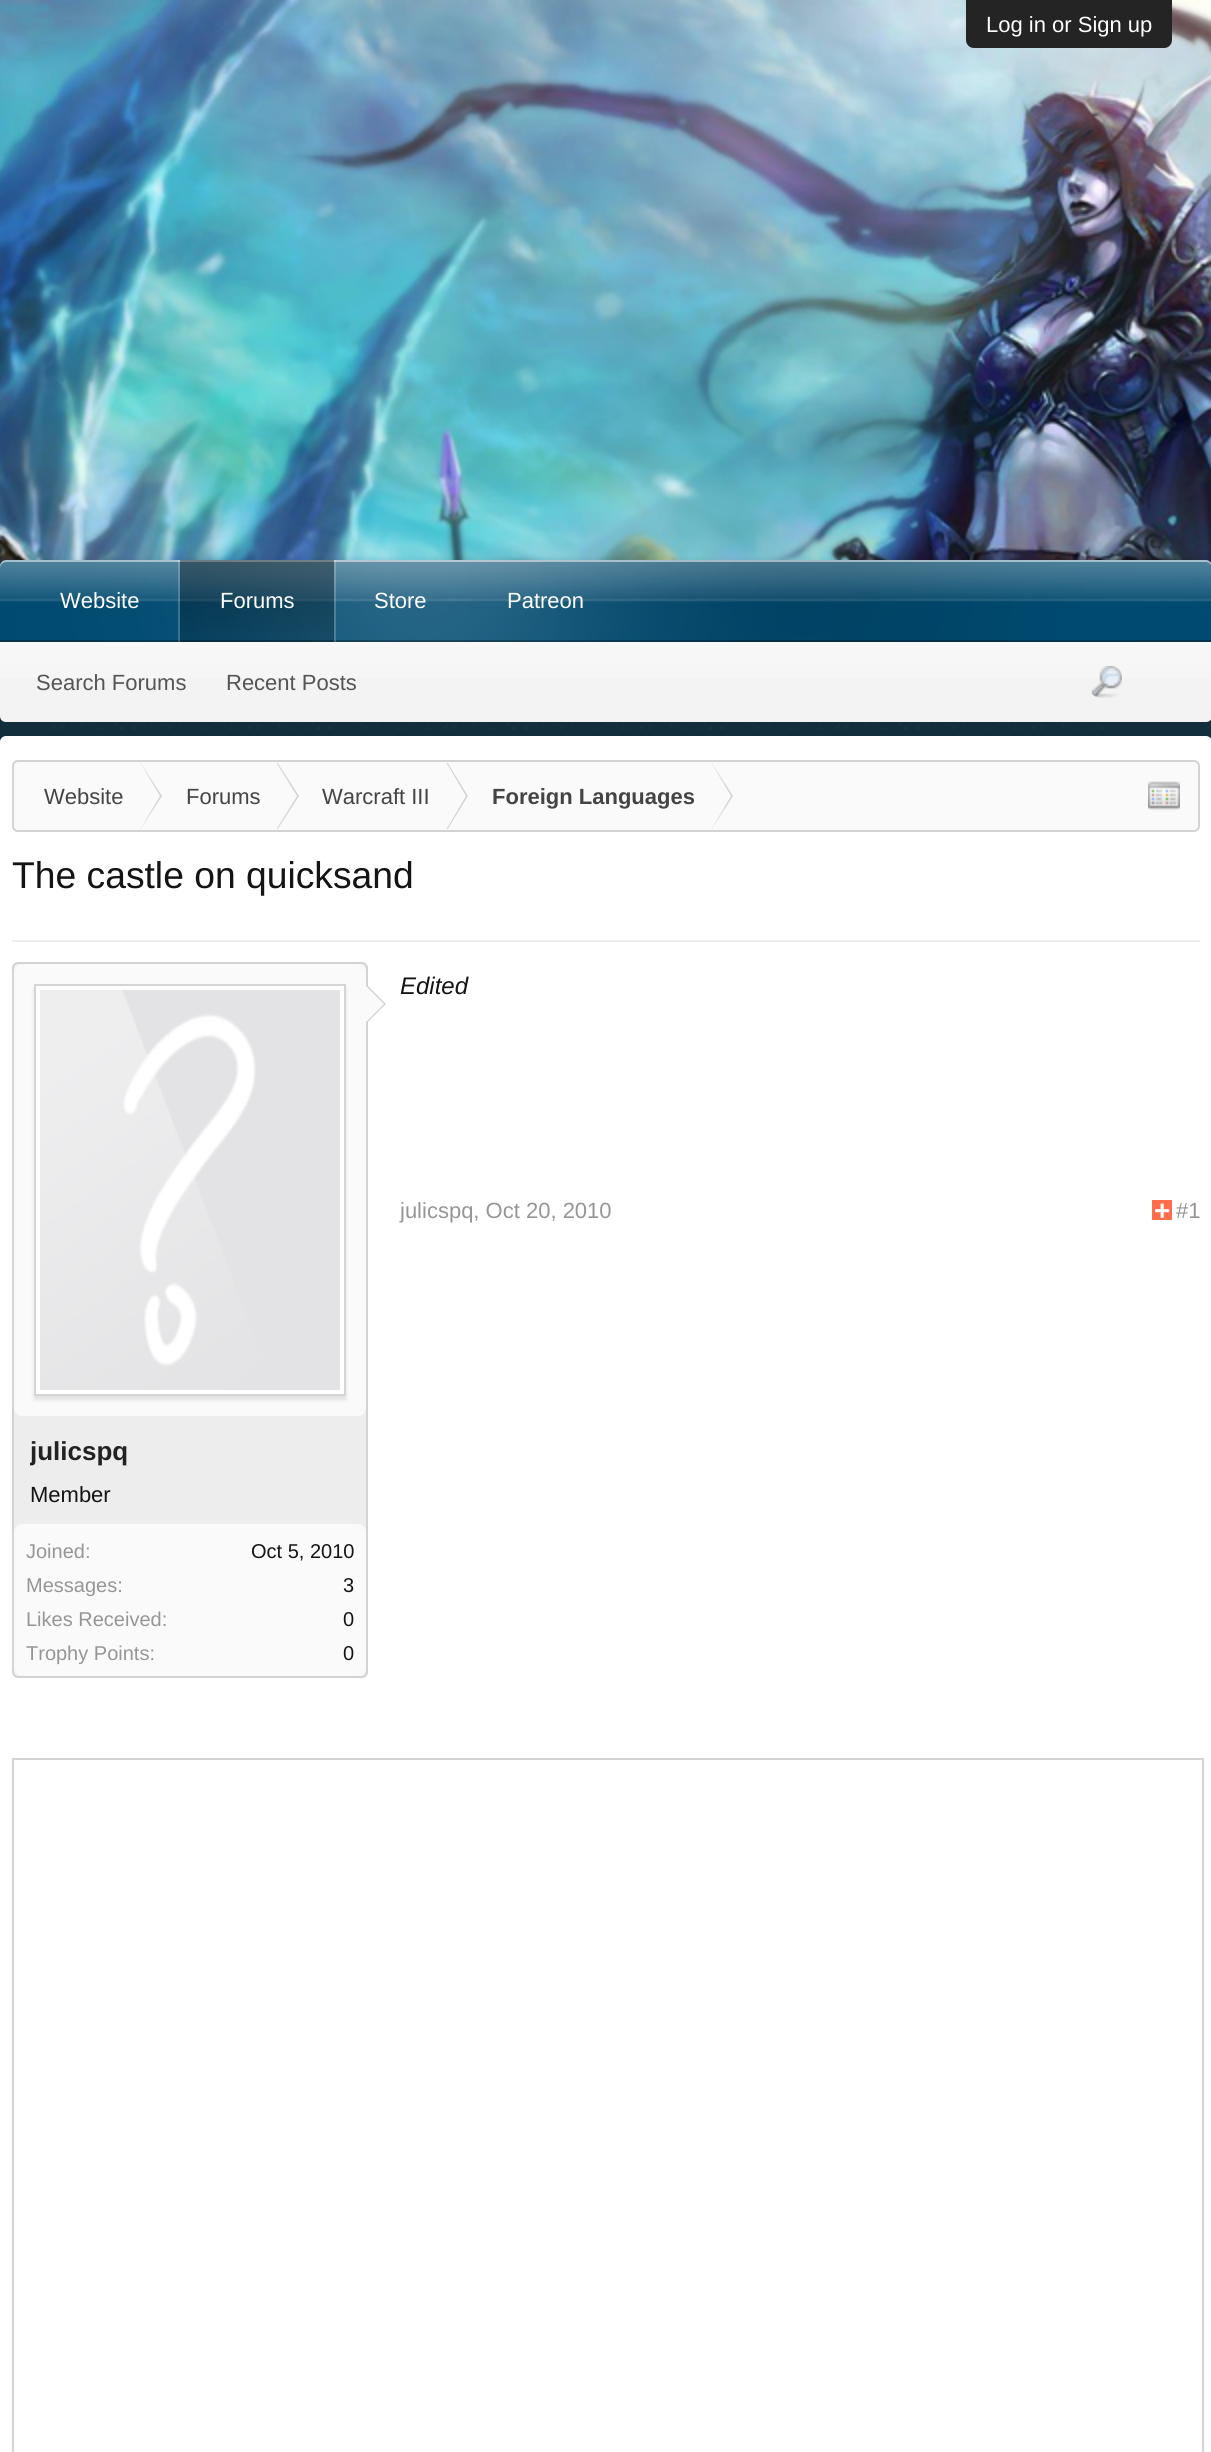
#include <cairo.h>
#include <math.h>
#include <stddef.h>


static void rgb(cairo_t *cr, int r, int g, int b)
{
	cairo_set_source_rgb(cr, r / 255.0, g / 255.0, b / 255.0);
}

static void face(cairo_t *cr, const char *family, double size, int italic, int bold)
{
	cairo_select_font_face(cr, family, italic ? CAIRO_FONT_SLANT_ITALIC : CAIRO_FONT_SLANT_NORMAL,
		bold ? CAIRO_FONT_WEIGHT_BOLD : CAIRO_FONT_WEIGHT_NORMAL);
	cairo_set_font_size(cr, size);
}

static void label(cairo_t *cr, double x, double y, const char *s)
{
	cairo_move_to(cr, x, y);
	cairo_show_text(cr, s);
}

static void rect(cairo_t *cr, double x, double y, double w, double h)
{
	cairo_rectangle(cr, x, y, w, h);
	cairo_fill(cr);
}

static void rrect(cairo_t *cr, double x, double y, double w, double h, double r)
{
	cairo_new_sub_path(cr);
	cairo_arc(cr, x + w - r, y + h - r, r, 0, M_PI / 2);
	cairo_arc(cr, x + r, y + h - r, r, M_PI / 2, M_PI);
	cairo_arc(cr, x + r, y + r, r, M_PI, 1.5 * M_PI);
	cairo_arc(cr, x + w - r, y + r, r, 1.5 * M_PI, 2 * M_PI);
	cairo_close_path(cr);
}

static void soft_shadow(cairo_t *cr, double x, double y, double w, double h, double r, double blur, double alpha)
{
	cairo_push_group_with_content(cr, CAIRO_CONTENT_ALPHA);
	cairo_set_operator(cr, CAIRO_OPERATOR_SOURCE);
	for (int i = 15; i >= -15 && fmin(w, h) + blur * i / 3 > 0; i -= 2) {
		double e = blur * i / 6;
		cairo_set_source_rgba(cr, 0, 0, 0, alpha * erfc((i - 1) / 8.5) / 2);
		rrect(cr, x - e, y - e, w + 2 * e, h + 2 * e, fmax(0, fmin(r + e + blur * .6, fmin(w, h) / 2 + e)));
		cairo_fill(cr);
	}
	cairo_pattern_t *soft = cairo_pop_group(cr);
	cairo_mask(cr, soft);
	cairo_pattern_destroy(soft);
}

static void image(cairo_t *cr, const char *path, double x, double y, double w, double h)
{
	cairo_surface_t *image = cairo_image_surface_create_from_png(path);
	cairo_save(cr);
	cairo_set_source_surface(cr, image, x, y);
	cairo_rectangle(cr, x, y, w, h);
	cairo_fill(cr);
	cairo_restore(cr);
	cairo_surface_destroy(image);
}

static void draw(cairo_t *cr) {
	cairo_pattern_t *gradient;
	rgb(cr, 18, 46, 60);
	cairo_paint(cr);
	image(cr, "image0.png", 52, 723, 1051, 7);
	image(cr, "image1.png", 0, 0, 1211, 566);
	rgb(cr, 36, 36, 36);
	cairo_new_path(cr);
	cairo_move_to(cr, 966, 0);
	cairo_line_to(cr, 1172, 0);
	cairo_line_to(cr, 1172, 40);
	cairo_curve_to(cr, 1172, 44.5, 1168.5, 48, 1164, 48);
	cairo_line_to(cr, 974, 48);
	cairo_curve_to(cr, 969.5, 48, 966, 44.5, 966, 40);
	cairo_close_path(cr);
	cairo_fill(cr);
	face(cr, "Liberation Sans", 22, 0, 0);
	rgb(cr, 255, 255, 255);
	label(cr, 986, 32, "Log in or Sign up");
	rgb(cr, 0, 0, 0);
	soft_shadow(cr, 0, 562, 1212, 82, 6, 4, 0.15);
	rgb(cr, 0, 74, 112);
	cairo_new_path(cr);
	cairo_move_to(cr, 6, 560);
	cairo_line_to(cr, 1206, 560);
	cairo_curve_to(cr, 1209.5, 560, 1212, 562.5, 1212, 566);
	cairo_line_to(cr, 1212, 642);
	cairo_line_to(cr, 0, 642);
	cairo_line_to(cr, 0, 566);
	cairo_curve_to(cr, 0, 562.5, 2.5, 560, 6, 560);
	cairo_close_path(cr);
	cairo_fill(cr);
	image(cr, "image2.png", 0, 560, 1211, 82);
	cairo_set_source_rgba(cr, 1, 1, 1, 0.5);
	cairo_new_path(cr);
	cairo_move_to(cr, 6, 562);
	cairo_line_to(cr, 1206, 562);
	cairo_curve_to(cr, 1209, 562, 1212, 565, 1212, 568);
	cairo_line_to(cr, 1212, 566);
	cairo_curve_to(cr, 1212, 563, 1209, 560, 1206, 560);
	cairo_line_to(cr, 6, 560);
	cairo_curve_to(cr, 3, 560, 0, 563, 0, 566);
	cairo_line_to(cr, 0, 568);
	cairo_curve_to(cr, 0, 565, 3, 562, 6, 562);
	cairo_close_path(cr);
	cairo_fill(cr);
	cairo_set_source_rgba(cr, 0, 0, 0, 0.3);
	rect(cr, 0, 640, 1211, 2);
	cairo_set_source_rgba(cr, 1, 1, 1, 0.2);
	rect(cr, 334, 560, 2, 82);
	rect(cr, 178, 560, 2, 82);
	cairo_set_source_rgba(cr, 0, 0, 0, 0.2);
	rect(cr, 180, 560, 154, 82);
	gradient = cairo_pattern_create_linear(257, 560, 257, 642);
	cairo_pattern_add_color_stop_rgba(gradient, 0, 0, 0, 0, 0.2);
	cairo_pattern_add_color_stop_rgba(gradient, 1, 0, 0, 0, 0);
	cairo_set_source(cr, gradient);
	cairo_pattern_destroy(gradient);
	rect(cr, 180, 560, 154, 72);
	rgb(cr, 255, 255, 255);
	label(cr, 220, 608, "Forums");
	rgb(cr, 243, 243, 243);
	cairo_new_path(cr);
	cairo_move_to(cr, 0, 642);
	cairo_line_to(cr, 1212, 642);
	cairo_line_to(cr, 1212, 716);
	cairo_curve_to(cr, 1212, 719.5, 1209.5, 722, 1206, 722);
	cairo_line_to(cr, 6, 722);
	cairo_curve_to(cr, 2.5, 722, 0, 719.5, 0, 716);
	cairo_close_path(cr);
	cairo_fill(cr);
	gradient = cairo_pattern_create_linear(606, 642, 606, 722);
	cairo_pattern_add_color_stop_rgba(gradient, 0, 1, 1, 1, 0.4);
	cairo_pattern_add_color_stop_rgba(gradient, 1, 1, 1, 1, 0);
	cairo_set_source(cr, gradient);
	cairo_pattern_destroy(gradient);
	rect(cr, 0, 642, 1211, 36);
	rgb(cr, 85, 85, 85);
	label(cr, 36, 690, "Search Forums");
	label(cr, 226, 690, "Recent Posts");
	rgb(cr, 255, 255, 255);
	label(cr, 60, 608, "Website");
	label(cr, 374, 608, "Store");
	label(cr, 507, 608, "Patreon");
	image(cr, "image3.png", 1091, 666, 31, 32);
	rrect(cr, 0, 736, 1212, 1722, 6);
	cairo_fill(cr);
	rgb(cr, 250, 250, 250);
	rrect(cr, 13, 761, 1186, 70, 5);
	cairo_fill_preserve(cr);
	rgb(cr, 211, 211, 211);
	cairo_stroke(cr);
	cairo_save(cr);
	rrect(cr, 14, 762, 1184, 68, 4);
	cairo_clip(cr);
	rgb(cr, 250, 250, 250);
	cairo_new_path(cr);
	cairo_move_to(cr, 22, 762);
	cairo_line_to(cr, 140, 762);
	cairo_line_to(cr, 140, 832);
	cairo_line_to(cr, 22, 832);
	cairo_curve_to(cr, 17.5, 832, 14, 828.5, 14, 824);
	cairo_line_to(cr, 14, 770);
	cairo_curve_to(cr, 14, 765.5, 17.5, 762, 22, 762);
	cairo_close_path(cr);
	cairo_fill(cr);
	cairo_restore(cr);
	rgb(cr, 68, 68, 68);
	label(cr, 44, 804, "Website");
	rgb(cr, 211, 211, 211);
	cairo_new_path(cr);
	cairo_move_to(cr, 140, 830);
	cairo_line_to(cr, 140, 762);
	cairo_line_to(cr, 162, 796);
	cairo_close_path(cr);
	cairo_fill(cr);
	rgb(cr, 250, 250, 250);
	cairo_new_path(cr);
	cairo_move_to(cr, 140, 762);
	cairo_line_to(cr, 160, 796);
	cairo_line_to(cr, 140, 830);
	cairo_line_to(cr, 139, 830);
	cairo_line_to(cr, 139, 762);
	cairo_close_path(cr);
	cairo_fill(cr);
	rgb(cr, 68, 68, 68);
	label(cr, 186, 804, "Forums");
	rgb(cr, 211, 211, 211);
	cairo_new_path(cr);
	cairo_move_to(cr, 277, 830);
	cairo_line_to(cr, 277, 762);
	cairo_line_to(cr, 299, 796);
	cairo_close_path(cr);
	cairo_fill(cr);
	rgb(cr, 250, 250, 250);
	cairo_new_path(cr);
	cairo_move_to(cr, 276, 762);
	cairo_line_to(cr, 297, 796);
	cairo_line_to(cr, 276, 830);
	cairo_line_to(cr, 275, 830);
	cairo_line_to(cr, 275, 762);
	cairo_close_path(cr);
	cairo_fill(cr);
	rgb(cr, 68, 68, 68);
	label(cr, 322, 804, "Warcraft III");
	rgb(cr, 211, 211, 211);
	cairo_new_path(cr);
	cairo_move_to(cr, 447, 830);
	cairo_line_to(cr, 447, 762);
	cairo_line_to(cr, 468, 796);
	cairo_close_path(cr);
	cairo_fill(cr);
	rgb(cr, 250, 250, 250);
	cairo_new_path(cr);
	cairo_move_to(cr, 446, 762);
	cairo_line_to(cr, 466, 796);
	cairo_line_to(cr, 446, 830);
	cairo_line_to(cr, 445, 830);
	cairo_line_to(cr, 445, 762);
	cairo_close_path(cr);
	cairo_fill(cr);
	face(cr, "Liberation Sans", 22, 0, 1);
	rgb(cr, 68, 68, 68);
	label(cr, 492, 804, "Foreign Languages");
	rgb(cr, 211, 211, 211);
	cairo_new_path(cr);
	cairo_move_to(cr, 711, 830);
	cairo_line_to(cr, 711, 762);
	cairo_line_to(cr, 733, 796);
	cairo_close_path(cr);
	cairo_fill(cr);
	rgb(cr, 250, 250, 250);
	cairo_new_path(cr);
	cairo_move_to(cr, 711, 762);
	cairo_line_to(cr, 731, 796);
	cairo_line_to(cr, 711, 830);
	cairo_line_to(cr, 710, 830);
	cairo_line_to(cr, 710, 762);
	cairo_close_path(cr);
	cairo_fill(cr);
	image(cr, "image4.png", 1148, 781, 32, 30);
	face(cr, "Liberation Sans", 37.25, 0, 0);
	rgb(cr, 20, 20, 20);
	label(cr, 12, 888, "The castle on quicksand");
	rgb(cr, 237, 237, 237);
	rect(cr, 12, 940, 1188, 2);
	face(cr, "Liberation Sans", 24, 1, 0);
	rgb(cr, 20, 20, 20);
	label(cr, 400, 994, "Edited");
	face(cr, "Liberation Sans", 22, 0, 0);
	rgb(cr, 150, 150, 150);
	label(cr, 400, 1218, "julicspq, Oct 20, 2010");
	rgb(cr, 254, 109, 76);
	rect(cr, 1152, 1200, 20, 20);
	face(cr, "Liberation Sans", 28, 0, 1);
	rgb(cr, 255, 255, 255);
	label(cr, 1154, 1220, "+");
	face(cr, "Liberation Sans", 22, 0, 0);
	rgb(cr, 150, 150, 150);
	label(cr, 1176, 1218, "#1");
	rgb(cr, 237, 237, 237);
	rrect(cr, 13, 963, 354, 714, 5);
	cairo_fill_preserve(cr);
	rgb(cr, 211, 211, 211);
	cairo_stroke(cr);
	rgb(cr, 250, 250, 250);
	rrect(cr, 14, 964, 352, 452, 8);
	cairo_fill(cr);
	rgb(cr, 0, 0, 0);
	soft_shadow(cr, 34, 988, 312, 412, 0, 2, 0.1);
	rgb(cr, 255, 255, 255);
	cairo_rectangle(cr, 35, 985, 310, 410);
	cairo_fill_preserve(cr);
	rgb(cr, 213, 213, 213);
	cairo_stroke(cr);
	image(cr, "image5.png", 40, 990, 300, 400);
	rgb(cr, 211, 211, 211);
	cairo_new_path(cr);
	cairo_move_to(cr, 366, 1024);
	cairo_line_to(cr, 366, 984);
	cairo_line_to(cr, 386, 1004);
	cairo_close_path(cr);
	cairo_fill(cr);
	rgb(cr, 250, 250, 250);
	cairo_new_path(cr);
	cairo_move_to(cr, 364, 1024);
	cairo_line_to(cr, 364, 984);
	cairo_line_to(cr, 384, 1004);
	cairo_close_path(cr);
	cairo_fill(cr);
	cairo_save(cr);
	cairo_rectangle(cr, 30, 1432, 336, 40);
	cairo_clip(cr);
	face(cr, "Liberation Sans", 26, 0, 1);
	rgb(cr, 34, 34, 34);
	label(cr, 30, 1460, "julicspq");
	cairo_restore(cr);
	rgb(cr, 20, 20, 20);
	label(cr, 30, 1502, "Member");
	rgb(cr, 250, 250, 250);
	rrect(cr, 14, 1524, 352, 152, 8);
	cairo_fill(cr);
	face(cr, "Liberation Sans", 20, 0, 0);
	rgb(cr, 150, 150, 150);
	label(cr, 26, 1558, "Joined:");
	rgb(cr, 20, 20, 20);
	label(cr, 251, 1558, "Oct 5, 2010");
	rgb(cr, 150, 150, 150);
	label(cr, 26, 1592, "Messages:");
	rgb(cr, 20, 20, 20);
	label(cr, 343, 1592, "3");
	rgb(cr, 150, 150, 150);
	label(cr, 26, 1626, "Likes Received:");
	rgb(cr, 20, 20, 20);
	label(cr, 343, 1626, "0");
	rgb(cr, 150, 150, 150);
	label(cr, 26, 1660, "Trophy Points:");
	rgb(cr, 20, 20, 20);
	label(cr, 343, 1660, "0");
	cairo_rectangle(cr, 13, 1759, 1190, 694);
	rgb(cr, 211, 211, 211);
	cairo_stroke(cr);
}

int main(void) {
	cairo_surface_t *surface = cairo_image_surface_create(CAIRO_FORMAT_RGB24, 1211, 2452);
	cairo_t *cr = cairo_create(surface);
	cairo_font_options_t *options = cairo_font_options_create();
	cairo_font_options_set_hint_metrics(options, CAIRO_HINT_METRICS_OFF);
	cairo_font_options_set_hint_style(options, CAIRO_HINT_STYLE_NONE);
	cairo_set_font_options(cr, options);
	cairo_set_miter_limit(cr, 4);
	draw(cr);
	cairo_surface_write_to_png(surface, "render.png");
	cairo_font_options_destroy(options);
	cairo_destroy(cr);
	cairo_surface_destroy(surface);
	return 0;
}
